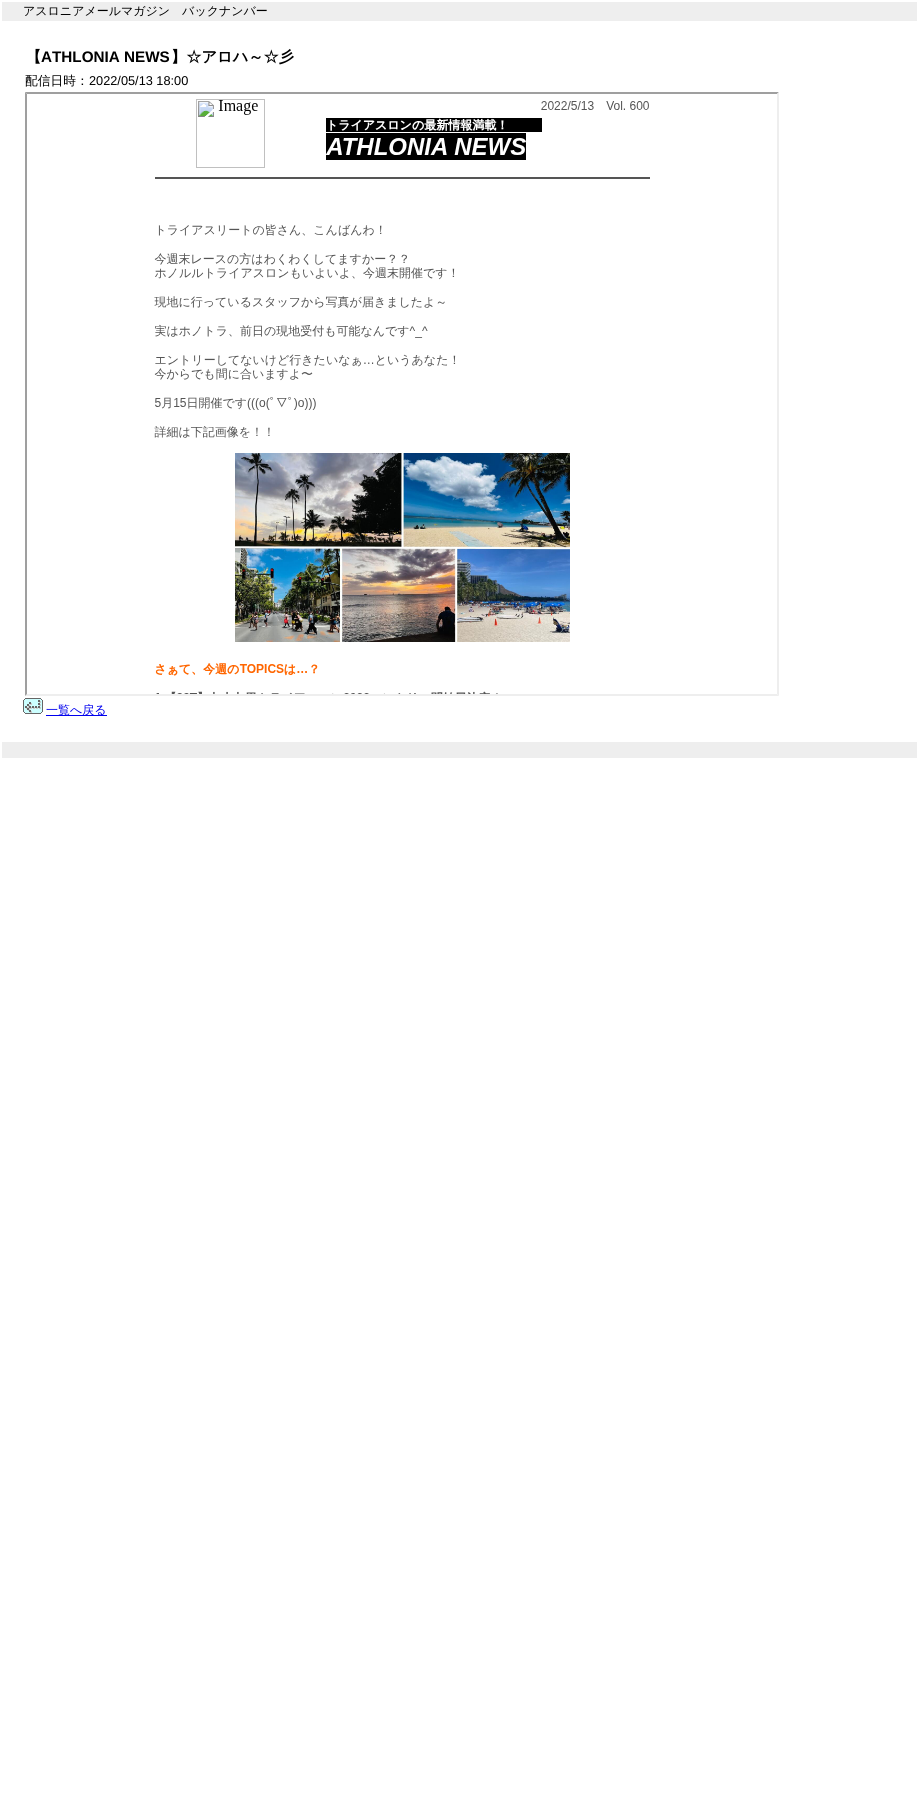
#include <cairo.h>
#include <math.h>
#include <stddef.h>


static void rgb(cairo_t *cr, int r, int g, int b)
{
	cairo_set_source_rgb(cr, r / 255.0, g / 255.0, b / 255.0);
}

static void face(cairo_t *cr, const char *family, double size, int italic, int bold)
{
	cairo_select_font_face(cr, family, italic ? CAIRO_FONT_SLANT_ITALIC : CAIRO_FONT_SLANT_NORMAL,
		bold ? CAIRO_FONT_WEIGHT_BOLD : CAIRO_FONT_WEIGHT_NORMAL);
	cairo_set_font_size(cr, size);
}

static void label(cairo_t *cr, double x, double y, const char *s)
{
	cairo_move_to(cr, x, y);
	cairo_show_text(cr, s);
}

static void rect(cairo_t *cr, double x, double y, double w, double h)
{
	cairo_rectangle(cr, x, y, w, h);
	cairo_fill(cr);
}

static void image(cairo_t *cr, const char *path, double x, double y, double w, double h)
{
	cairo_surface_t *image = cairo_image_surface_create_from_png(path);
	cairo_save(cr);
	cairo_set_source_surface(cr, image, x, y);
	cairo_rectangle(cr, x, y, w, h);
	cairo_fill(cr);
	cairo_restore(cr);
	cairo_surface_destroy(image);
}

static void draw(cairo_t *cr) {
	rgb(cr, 255, 255, 255);
	cairo_paint(cr);
	rgb(cr, 238, 238, 238);
	rect(cr, 2, 2, 915, 19);
	face(cr, "WenQuanYi Zen Hei Medium", 12, 0, 0);
	rgb(cr, 0, 0, 0);
	label(cr, 23, 15, "アスロニアメールマガジン　バックナンバー");
	face(cr, "WenQuanYi Zen Hei", 15.25, 0, 1);
	label(cr, 26, 62, "【");
	face(cr, "Liberation Sans", 15.25, 0, 1);
	label(cr, 41, 62, "ATHLONIA NEWS");
	face(cr, "WenQuanYi Zen Hei", 15.25, 0, 1);
	label(cr, 171, 62, "】☆アロハ～☆彡");
	face(cr, "WenQuanYi Zen Hei Medium", 12.75, 0, 0);
	label(cr, 25, 85, "配信日時：");
	face(cr, "Liberation Sans", 12.75, 0, 0);
	label(cr, 89, 85, "2022/05/13 18:00");
	rgb(cr, 159, 159, 159);
	cairo_new_path(cr);
	cairo_move_to(cr, 25, 92);
	cairo_line_to(cr, 779, 92);
	cairo_line_to(cr, 777, 94);
	cairo_line_to(cr, 27, 94);
	cairo_close_path(cr);
	cairo_fill(cr);
	rgb(cr, 238, 238, 238);
	cairo_new_path(cr);
	cairo_move_to(cr, 779, 92);
	cairo_line_to(cr, 779, 696);
	cairo_line_to(cr, 777, 694);
	cairo_line_to(cr, 777, 94);
	cairo_close_path(cr);
	cairo_fill(cr);
	cairo_new_path(cr);
	cairo_move_to(cr, 779, 696);
	cairo_line_to(cr, 25, 696);
	cairo_line_to(cr, 27, 694);
	cairo_line_to(cr, 777, 694);
	cairo_close_path(cr);
	cairo_fill(cr);
	rgb(cr, 159, 159, 159);
	cairo_new_path(cr);
	cairo_move_to(cr, 25, 696);
	cairo_line_to(cr, 25, 92);
	cairo_line_to(cr, 27, 94);
	cairo_line_to(cr, 27, 694);
	cairo_close_path(cr);
	cairo_fill(cr);
	image(cr, "image0.png", 154, 99, 496, 595);
	image(cr, "image1.png", 23, 698, 20, 16);
	rgb(cr, 0, 0, 238);
	rect(cr, 46, 715, 61, 1);
	face(cr, "WenQuanYi Zen Hei Medium", 12, 0, 0);
	label(cr, 46, 714, "一覧へ戻る");
	rgb(cr, 238, 238, 238);
	rect(cr, 2, 742, 915, 16);
}

int main(void) {
	cairo_surface_t *surface = cairo_image_surface_create(CAIRO_FORMAT_RGB24, 919, 1802);
	cairo_t *cr = cairo_create(surface);
	cairo_font_options_t *options = cairo_font_options_create();
	cairo_font_options_set_hint_metrics(options, CAIRO_HINT_METRICS_OFF);
	cairo_font_options_set_hint_style(options, CAIRO_HINT_STYLE_NONE);
	cairo_set_font_options(cr, options);
	cairo_set_miter_limit(cr, 4);
	draw(cr);
	cairo_surface_write_to_png(surface, "render.png");
	cairo_font_options_destroy(options);
	cairo_destroy(cr);
	cairo_surface_destroy(surface);
	return 0;
}
